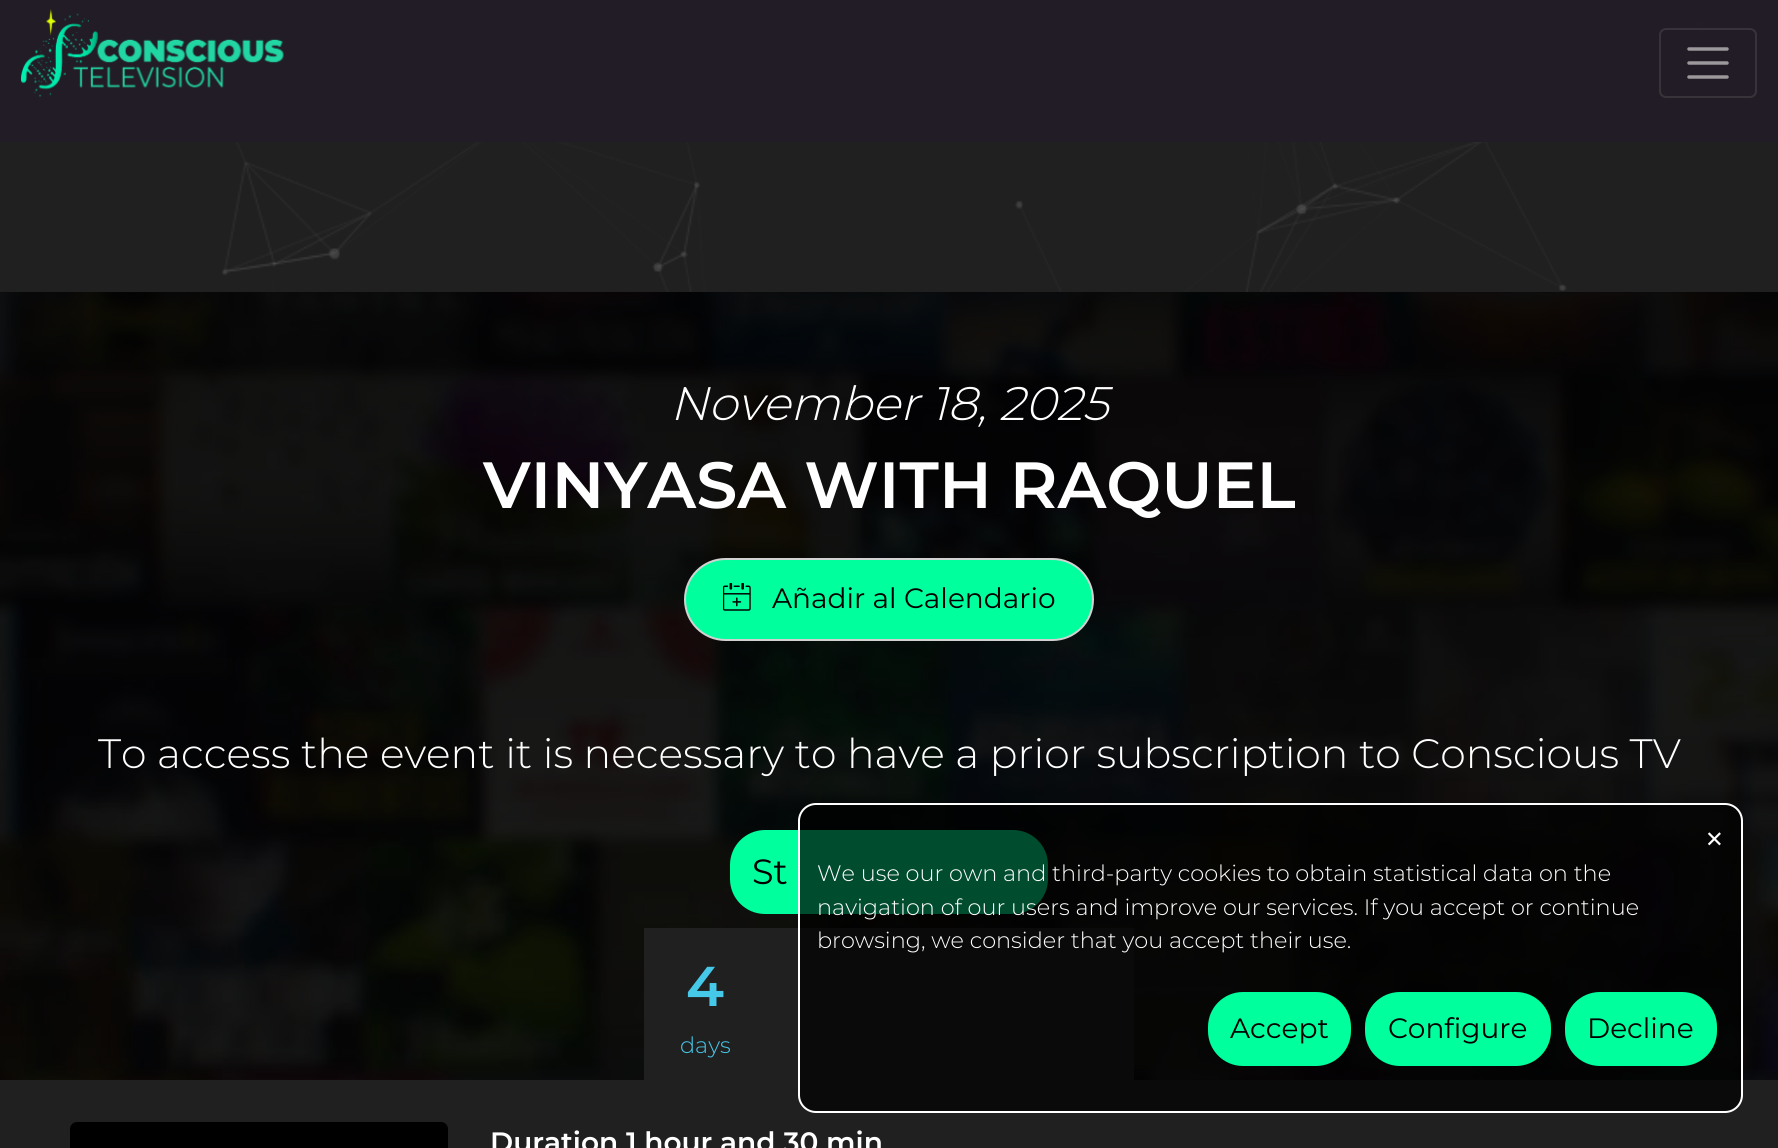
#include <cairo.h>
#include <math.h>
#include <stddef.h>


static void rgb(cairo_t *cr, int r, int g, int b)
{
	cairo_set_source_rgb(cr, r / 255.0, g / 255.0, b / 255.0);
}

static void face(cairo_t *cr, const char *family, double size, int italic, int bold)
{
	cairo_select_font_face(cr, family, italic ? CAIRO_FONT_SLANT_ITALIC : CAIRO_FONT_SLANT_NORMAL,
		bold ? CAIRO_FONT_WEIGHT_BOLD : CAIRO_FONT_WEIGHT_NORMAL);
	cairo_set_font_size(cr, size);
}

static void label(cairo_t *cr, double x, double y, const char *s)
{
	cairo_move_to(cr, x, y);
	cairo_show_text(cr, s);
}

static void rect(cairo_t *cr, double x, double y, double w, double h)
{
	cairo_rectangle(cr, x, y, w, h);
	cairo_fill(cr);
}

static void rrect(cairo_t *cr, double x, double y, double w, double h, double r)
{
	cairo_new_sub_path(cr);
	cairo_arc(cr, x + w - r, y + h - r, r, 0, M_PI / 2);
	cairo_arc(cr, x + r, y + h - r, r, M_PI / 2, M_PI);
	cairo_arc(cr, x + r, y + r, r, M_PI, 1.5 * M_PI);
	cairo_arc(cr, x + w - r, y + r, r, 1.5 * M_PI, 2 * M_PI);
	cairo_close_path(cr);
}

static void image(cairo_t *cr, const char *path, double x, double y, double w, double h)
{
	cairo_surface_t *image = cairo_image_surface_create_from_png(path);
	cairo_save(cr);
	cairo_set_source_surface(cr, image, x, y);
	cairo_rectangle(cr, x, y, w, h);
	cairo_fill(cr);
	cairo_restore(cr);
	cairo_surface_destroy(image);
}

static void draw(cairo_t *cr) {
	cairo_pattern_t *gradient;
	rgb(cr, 32, 32, 32);
	cairo_paint(cr);
	image(cr, "image1.png", 178, 0, 1526, 292);
	cairo_set_source_rgba(cr, 0.133, 0.11, 0.149, 0.95);
	rect(cr, 0, 0, 1778, 142);
	image(cr, "image0.png", 21, 9, 263, 88);
	rrect(cr, 1660, 29, 96, 68, 6);
	rgb(cr, 56, 51, 59);
	cairo_stroke(cr);
	cairo_new_path(cr);
	cairo_move_to(cr, 1689, 49);
	cairo_line_to(cr, 1727, 49);
	cairo_move_to(cr, 1689, 63);
	cairo_line_to(cr, 1727, 63);
	cairo_move_to(cr, 1689, 77);
	cairo_line_to(cr, 1727, 77);
	rgb(cr, 156, 153, 157);
	cairo_set_line_width(cr, 3.5);
	cairo_set_line_cap(cr, CAIRO_LINE_CAP_ROUND);
	cairo_stroke(cr);
	image(cr, "image2.png", 0, 292, 1778, 788);
	gradient = cairo_pattern_create_linear(889, 292, 889, 1080);
	cairo_pattern_add_color_stop_rgba(gradient, 0, 0, 0, 0, 0.75);
	cairo_pattern_add_color_stop_rgba(gradient, 1, 0, 0, 0, 0.6);
	cairo_set_source(cr, gradient);
	cairo_pattern_destroy(gradient);
	rect(cr, 0, 292, 1778, 788);
	face(cr, "Montserrat Light", 47, 1, 0);
	rgb(cr, 255, 255, 255);
	label(cr, 670, 420, "November 18, 2025");
	face(cr, "Montserrat SemiBold", 65.25, 0, 0);
	label(cr, 483, 508, "VINYASA WITH RAQUEL");
	rgb(cr, 0, 255, 157);
	rrect(cr, 685, 559, 408, 81, 40.5);
	cairo_fill_preserve(cr);
	rgb(cr, 210, 210, 210);
	cairo_set_line_width(cr, 2);
	cairo_set_line_cap(cr, CAIRO_LINE_CAP_BUTT);
	cairo_stroke(cr);
	image(cr, "image3.png", 723, 583, 28, 28);
	face(cr, "Montserrat", 28, 0, 0);
	rgb(cr, 0, 0, 0);
	label(cr, 772, 608, "Añadir al Calendario");
	face(cr, "Montserrat Light", 41.05, 0, 0);
	rgb(cr, 255, 255, 255);
	label(cr, 98, 768, "To access the event it is necessary to have a prior subscription to Conscious TV");
	rgb(cr, 0, 255, 157);
	rrect(cr, 731, 831, 316, 82, 34);
	cairo_fill_preserve(cr);
	cairo_stroke(cr);
	face(cr, "Montserrat", 35, 0, 0);
	rgb(cr, 0, 0, 0);
	label(cr, 752, 884, "St");
	rgb(cr, 32, 32, 32);
	rect(cr, 644, 928, 490, 152);
	face(cr, "Montserrat SemiBold", 56, 0, 0);
	rgb(cr, 70, 200, 233);
	label(cr, 686, 1006, "4");
	face(cr, "Montserrat Light", 22.4, 0, 0);
	label(cr, 680, 1053, "days");
	rgb(cr, 0, 0, 0);
	rrect(cr, 71, 1123, 376, 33, 6);
	cairo_fill_preserve(cr);
	cairo_stroke(cr);
	face(cr, "Montserrat SemiBold", 28, 0, 0);
	rgb(cr, 255, 255, 255);
	label(cr, 490, 1152, "Duration 1 hour and 30 min");
	cairo_set_source_rgba(cr, 0, 0, 0, 0.7);
	rrect(cr, 799, 804, 943, 308, 17);
	cairo_fill_preserve(cr);
	rgb(cr, 255, 255, 255);
	cairo_stroke(cr);
	face(cr, "DejaVu Sans", 22.4, 0, 0);
	label(cr, 1705, 847, "✕");
	face(cr, "Montserrat Light", 22.4, 0, 0);
	label(cr, 817, 881, "We use our own and third-party cookies to obtain statistical data on the");
	label(cr, 817, 915, "navigation of our users and improve our services. If you accept or continue");
	label(cr, 817, 948, "browsing, we consider that you accept their use.");
	rgb(cr, 0, 255, 157);
	rrect(cr, 1209, 993, 141, 72, 34);
	cairo_fill_preserve(cr);
	cairo_stroke(cr);
	face(cr, "Montserrat", 28, 0, 0);
	rgb(cr, 0, 0, 0);
	label(cr, 1230, 1038, "Accept");
	rgb(cr, 0, 255, 157);
	rrect(cr, 1366, 993, 184, 72, 34);
	cairo_fill_preserve(cr);
	cairo_stroke(cr);
	rgb(cr, 0, 0, 0);
	label(cr, 1388, 1038, "Configure");
	rgb(cr, 0, 255, 157);
	rrect(cr, 1566, 993, 150, 72, 34);
	cairo_fill_preserve(cr);
	cairo_stroke(cr);
	rgb(cr, 0, 0, 0);
	label(cr, 1587, 1038, "Decline");
}

int main(void) {
	cairo_surface_t *surface = cairo_image_surface_create(CAIRO_FORMAT_RGB24, 1778, 1148);
	cairo_t *cr = cairo_create(surface);
	cairo_font_options_t *options = cairo_font_options_create();
	cairo_font_options_set_hint_metrics(options, CAIRO_HINT_METRICS_OFF);
	cairo_font_options_set_hint_style(options, CAIRO_HINT_STYLE_NONE);
	cairo_set_font_options(cr, options);
	cairo_set_miter_limit(cr, 4);
	draw(cr);
	cairo_surface_write_to_png(surface, "render.png");
	cairo_font_options_destroy(options);
	cairo_destroy(cr);
	cairo_surface_destroy(surface);
	return 0;
}
